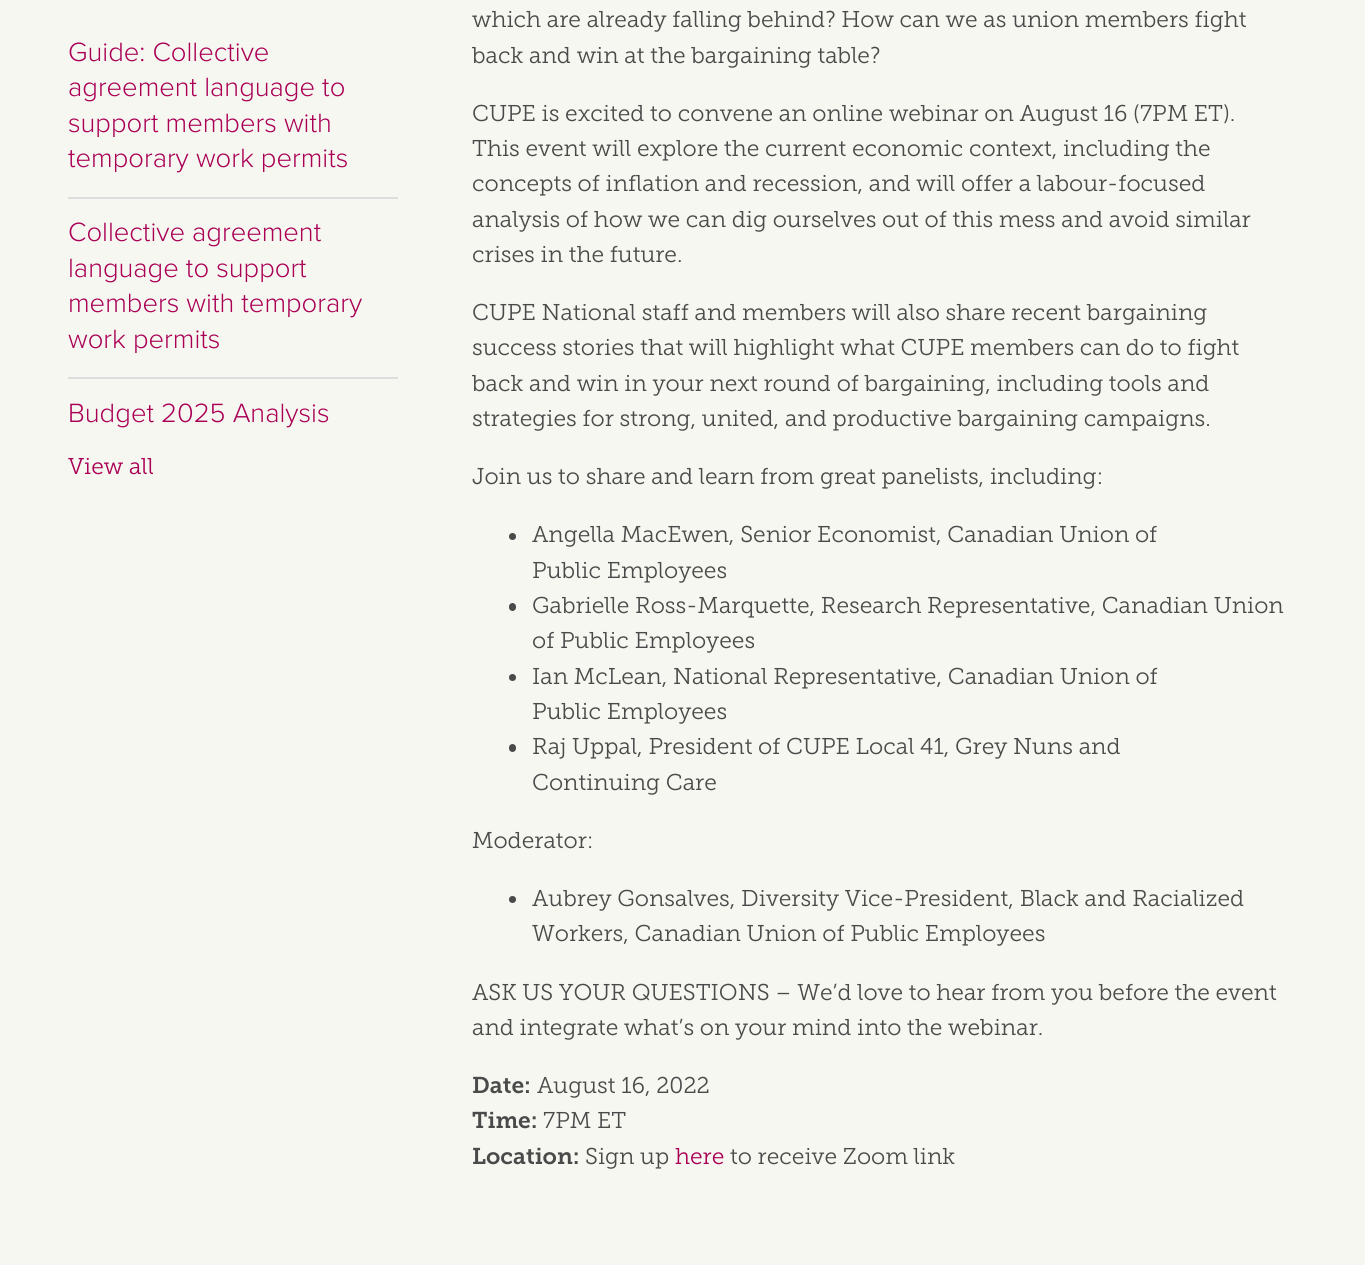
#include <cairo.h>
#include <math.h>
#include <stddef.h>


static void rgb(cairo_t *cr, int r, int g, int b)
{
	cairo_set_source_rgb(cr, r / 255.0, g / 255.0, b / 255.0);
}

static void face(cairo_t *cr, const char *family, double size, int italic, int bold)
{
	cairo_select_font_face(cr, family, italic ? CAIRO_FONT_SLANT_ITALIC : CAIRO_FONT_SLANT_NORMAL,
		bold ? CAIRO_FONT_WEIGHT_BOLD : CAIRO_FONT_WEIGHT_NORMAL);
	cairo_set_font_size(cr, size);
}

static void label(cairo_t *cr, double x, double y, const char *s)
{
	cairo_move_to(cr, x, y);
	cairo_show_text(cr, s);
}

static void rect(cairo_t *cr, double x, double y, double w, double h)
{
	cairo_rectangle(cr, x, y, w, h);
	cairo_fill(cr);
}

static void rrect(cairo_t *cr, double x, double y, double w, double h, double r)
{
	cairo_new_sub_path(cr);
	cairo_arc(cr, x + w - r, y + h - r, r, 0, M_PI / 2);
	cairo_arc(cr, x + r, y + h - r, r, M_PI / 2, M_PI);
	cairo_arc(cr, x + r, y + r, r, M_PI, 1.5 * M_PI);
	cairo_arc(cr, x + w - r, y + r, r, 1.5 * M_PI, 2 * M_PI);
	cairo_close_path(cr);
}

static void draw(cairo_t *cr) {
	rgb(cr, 246, 247, 240);
	cairo_paint(cr);
	rgb(cr, 221, 221, 221);
	rect(cr, 68, 197, 330, 2);
	face(cr, "Proxima Nova Light", 27.4, 0, 0);
	rgb(cr, 170, 0, 86);
	label(cr, 68, 61, "Guide: Collective");
	label(cr, 68, 96, "agreement language to");
	label(cr, 68, 132, "support members with");
	label(cr, 68, 167, "temporary work permits");
	rgb(cr, 221, 221, 221);
	rect(cr, 68, 377, 330, 2);
	rgb(cr, 170, 0, 86);
	label(cr, 68, 241, "Collective agreement");
	label(cr, 68, 277, "language to support");
	label(cr, 68, 312, "members with temporary");
	label(cr, 68, 348, "work permits");
	label(cr, 68, 422, "Budget 2025 Analysis");
	face(cr, "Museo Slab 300 Light", 22.8, 0, 0);
	label(cr, 68, 474, "View all");
	rgb(cr, 74, 74, 74);
	label(cr, 472, 27, "which are already falling behind? How can we as union members fight");
	label(cr, 472, 63, "back and win at the bargaining table?");
	label(cr, 472, 121, "CUPE is excited to convene an online webinar on August 16 (7PM ET).");
	label(cr, 472, 156, "This event will explore the current economic context, including the");
	label(cr, 472, 191, "concepts of inflation and recession, and will offer a labour-focused");
	label(cr, 472, 227, "analysis of how we can dig ourselves out of this mess and avoid similar");
	label(cr, 472, 262, "crises in the future.");
	label(cr, 472, 320, "CUPE National staff and members will also share recent bargaining");
	label(cr, 472, 355, "success stories that will highlight what CUPE members can do to fight");
	label(cr, 472, 391, "back and win in your next round of bargaining, including tools and");
	label(cr, 472, 426, "strategies for strong, united, and productive bargaining campaigns.");
	label(cr, 472, 484, "Join us to share and learn from great panelists, including:");
	cairo_new_path(cr);
	cairo_arc(cr, 512.5, 536.5, 3.5, 0, 2 * M_PI);
	cairo_fill(cr);
	label(cr, 532, 542, "Angella MacEwen, Senior Economist, Canadian Union of");
	label(cr, 532, 578, "Public Employees");
	rrect(cr, 509, 603, 7, 8, 3.5);
	cairo_fill(cr);
	label(cr, 532, 613, "Gabrielle Ross-Marquette, Research Representative, Canadian Union");
	label(cr, 532, 648, "of Public Employees");
	cairo_new_path(cr);
	cairo_arc(cr, 512.5, 677.5, 3.5, 0, 2 * M_PI);
	cairo_fill(cr);
	label(cr, 532, 684, "Ian McLean, National Representative, Canadian Union of");
	label(cr, 532, 719, "Public Employees");
	rrect(cr, 509, 744, 7, 8, 3.5);
	cairo_fill(cr);
	label(cr, 532, 754, "Raj Uppal, President of CUPE Local 41, Grey Nuns and");
	label(cr, 532, 790, "Continuing Care");
	label(cr, 472, 848, "Moderator:");
	cairo_new_path(cr);
	cairo_arc(cr, 512.5, 899.5, 3.5, 0, 2 * M_PI);
	cairo_fill(cr);
	label(cr, 532, 906, "Aubrey Gonsalves, Diversity Vice-President, Black and Racialized");
	label(cr, 532, 941, "Workers, Canadian Union of Public Employees");
	label(cr, 472, 1000, "ASK US YOUR QUESTIONS – We’d love to hear from you before the event");
	label(cr, 472, 1035, "and integrate what’s on your mind into the webinar.");
	face(cr, "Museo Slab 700 SemiBold", 22.8, 0, 0);
	label(cr, 472, 1093, "Date:");
	face(cr, "Museo Slab 300 Light", 22.8, 0, 0);
	label(cr, 537, 1093, "August 16, 2022");
	face(cr, "Museo Slab 700 SemiBold", 22.8, 0, 0);
	label(cr, 472, 1128, "Time:");
	face(cr, "Museo Slab 300 Light", 22.8, 0, 0);
	label(cr, 543, 1128, "7PM ET");
	face(cr, "Museo Slab 700 SemiBold", 22.8, 0, 0);
	label(cr, 472, 1164, "Location:");
	face(cr, "Museo Slab 300 Light", 22.8, 0, 0);
	label(cr, 585, 1164, "Sign up");
	rgb(cr, 170, 0, 86);
	label(cr, 675, 1164, "here");
	rgb(cr, 74, 74, 74);
	label(cr, 730, 1164, "to receive Zoom link");
}

int main(void) {
	cairo_surface_t *surface = cairo_image_surface_create(CAIRO_FORMAT_RGB24, 1365, 1265);
	cairo_t *cr = cairo_create(surface);
	cairo_font_options_t *options = cairo_font_options_create();
	cairo_font_options_set_hint_metrics(options, CAIRO_HINT_METRICS_OFF);
	cairo_font_options_set_hint_style(options, CAIRO_HINT_STYLE_NONE);
	cairo_set_font_options(cr, options);
	cairo_set_miter_limit(cr, 4);
	draw(cr);
	cairo_surface_write_to_png(surface, "render.png");
	cairo_font_options_destroy(options);
	cairo_destroy(cr);
	cairo_surface_destroy(surface);
	return 0;
}
